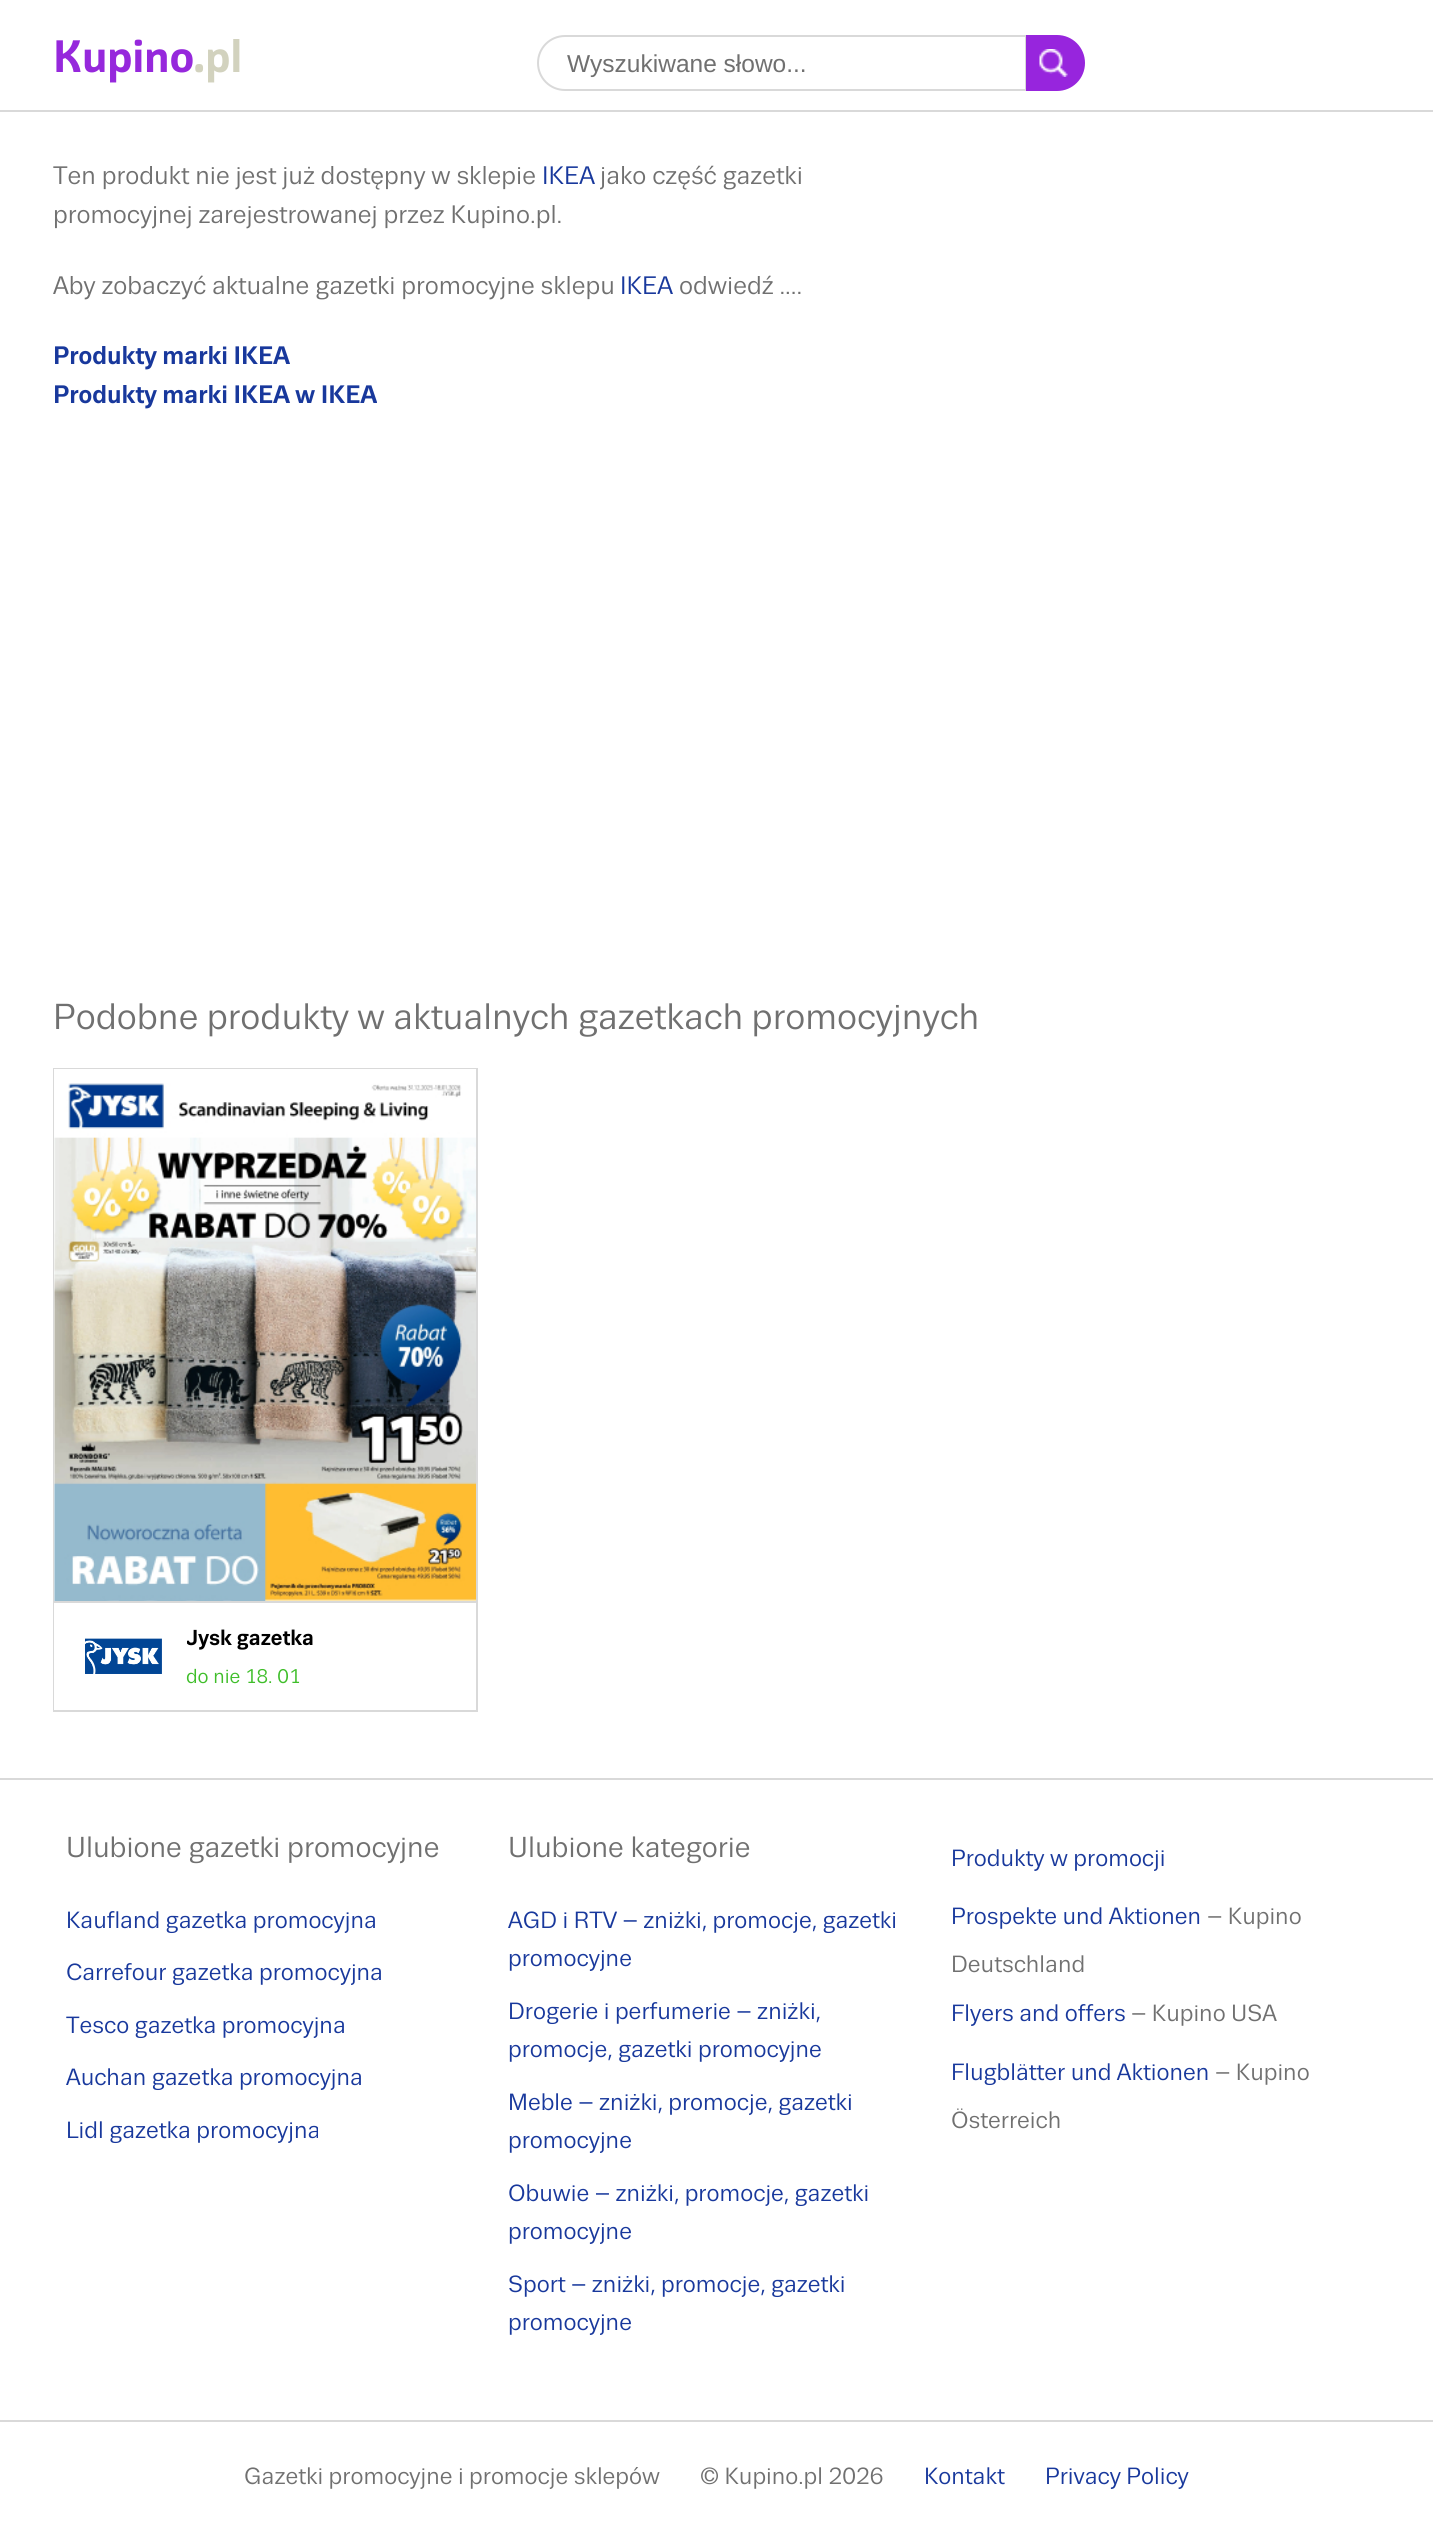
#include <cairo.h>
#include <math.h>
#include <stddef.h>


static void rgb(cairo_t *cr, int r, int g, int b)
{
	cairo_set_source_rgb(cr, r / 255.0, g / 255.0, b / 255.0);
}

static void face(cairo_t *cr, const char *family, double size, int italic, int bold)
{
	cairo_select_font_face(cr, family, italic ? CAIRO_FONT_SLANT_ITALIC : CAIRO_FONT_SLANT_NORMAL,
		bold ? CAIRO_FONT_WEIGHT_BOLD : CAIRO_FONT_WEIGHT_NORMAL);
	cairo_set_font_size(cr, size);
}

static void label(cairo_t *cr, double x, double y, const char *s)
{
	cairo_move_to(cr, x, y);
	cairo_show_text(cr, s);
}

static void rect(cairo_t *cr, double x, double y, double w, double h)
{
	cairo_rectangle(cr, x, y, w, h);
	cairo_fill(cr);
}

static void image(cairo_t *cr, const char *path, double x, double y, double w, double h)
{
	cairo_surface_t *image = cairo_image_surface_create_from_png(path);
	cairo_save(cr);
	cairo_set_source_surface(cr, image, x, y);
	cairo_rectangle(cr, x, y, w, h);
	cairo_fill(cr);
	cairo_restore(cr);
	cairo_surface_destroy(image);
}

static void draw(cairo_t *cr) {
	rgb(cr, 255, 255, 255);
	cairo_paint(cr);
	rgb(cr, 217, 217, 217);
	rect(cr, 0, 110, 1433, 2);
	face(cr, "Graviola", 44, 0, 1);
	rgb(cr, 150, 40, 220);
	label(cr, 53, 72, "Kupino");
	rgb(cr, 210, 210, 190);
	label(cr, 193, 72, ".pl");
	cairo_new_path(cr);
	cairo_move_to(cr, 565, 36);
	cairo_line_to(cr, 1026, 36);
	cairo_line_to(cr, 1026, 90);
	cairo_line_to(cr, 565, 90);
	cairo_curve_to(cr, 550, 90, 538, 78, 538, 63);
	cairo_curve_to(cr, 538, 48, 550, 36, 565, 36);
	cairo_close_path(cr);
	rgb(cr, 217, 217, 217);
	cairo_stroke(cr);
	face(cr, "Liberation Sans", 24.5, 0, 0);
	rgb(cr, 112, 112, 112);
	label(cr, 567, 72, "Wyszukiwane słowo...");
	rgb(cr, 151, 37, 221);
	cairo_new_path(cr);
	cairo_move_to(cr, 1027, 36);
	cairo_line_to(cr, 1057, 36);
	cairo_curve_to(cr, 1072, 36, 1084, 48, 1084, 63);
	cairo_curve_to(cr, 1084, 78, 1072, 90, 1057, 90);
	cairo_line_to(cr, 1027, 90);
	cairo_close_path(cr);
	cairo_fill_preserve(cr);
	cairo_stroke(cr);
	image(cr, "image0.png", 1039, 49, 29, 28);
	face(cr, "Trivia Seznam", 24.5, 0, 0);
	rgb(cr, 112, 112, 112);
	label(cr, 53, 184, "Ten produkt nie jest już dostępny w sklepie");
	rgb(cr, 24, 56, 156);
	label(cr, 542, 184, "IKEA");
	rgb(cr, 112, 112, 112);
	label(cr, 600, 184, "jako część gazetki");
	label(cr, 53, 223, "promocyjnej zarejestrowanej przez Kupino.pl.");
	label(cr, 53, 294, "Aby zobaczyć aktualne gazetki promocyjne sklepu");
	rgb(cr, 24, 56, 156);
	label(cr, 620, 294, "IKEA");
	rgb(cr, 112, 112, 112);
	label(cr, 679, 294, "odwiedź ....");
	face(cr, "Trivia Seznam", 24.5, 0, 1);
	rgb(cr, 24, 56, 156);
	label(cr, 53, 364, "Produkty marki IKEA");
	label(cr, 53, 403, "Produkty marki IKEA w IKEA");
	face(cr, "Trivia Seznam", 35, 0, 0);
	rgb(cr, 112, 112, 112);
	label(cr, 53, 1029, "Podobne produkty w aktualnych gazetkach promocyjnych");
	cairo_rectangle(cr, 54, 1069, 423, 642);
	rgb(cr, 217, 217, 217);
	cairo_stroke(cr);
	rgb(cr, 255, 255, 255);
	rect(cr, 54, 1069, 422, 532);
	image(cr, "image1.png", 54, 1083, 422, 518);
	rect(cr, 54, 1603, 1, 107);
	rgb(cr, 217, 217, 217);
	rect(cr, 54, 1601, 422, 2);
	image(cr, "image2.png", 85, 1638, 77, 36);
	cairo_save(cr);
	cairo_rectangle(cr, 187, 1619, 275, 38);
	cairo_clip(cr);
	face(cr, "Trivia Seznam", 21, 0, 1);
	rgb(cr, 0, 0, 0);
	label(cr, 186, 1645, "Jysk gazetka");
	cairo_restore(cr);
	face(cr, "Trivia Seznam", 19.25, 0, 0);
	rgb(cr, 63, 190, 42);
	label(cr, 186, 1683, "do nie 18. 01");
	rgb(cr, 217, 217, 217);
	rect(cr, 0, 1778, 1433, 2);
	face(cr, "Trivia Seznam", 28, 0, 0);
	rgb(cr, 112, 112, 112);
	label(cr, 66, 1857, "Ulubione gazetki promocyjne");
	face(cr, "Trivia Seznam", 22.75, 0, 0);
	rgb(cr, 24, 56, 156);
	label(cr, 66, 1928, "Kaufland gazetka promocyjna");
	label(cr, 66, 1980, "Carrefour gazetka promocyjna");
	label(cr, 66, 2033, "Tesco gazetka promocyjna");
	label(cr, 66, 2085, "Auchan gazetka promocyjna");
	label(cr, 66, 2138, "Lidl gazetka promocyjna");
	face(cr, "Trivia Seznam", 28, 0, 0);
	rgb(cr, 112, 112, 112);
	label(cr, 508, 1857, "Ulubione kategorie");
	face(cr, "Trivia Seznam", 22.75, 0, 0);
	rgb(cr, 24, 56, 156);
	label(cr, 508, 1928, "AGD i RTV – zniżki, promocje, gazetki");
	label(cr, 508, 1966, "promocyjne");
	label(cr, 508, 2019, "Drogerie i perfumerie – zniżki,");
	label(cr, 508, 2057, "promocje, gazetki promocyjne");
	label(cr, 508, 2110, "Meble – zniżki, promocje, gazetki");
	label(cr, 508, 2148, "promocyjne");
	label(cr, 508, 2201, "Obuwie – zniżki, promocje, gazetki");
	label(cr, 508, 2239, "promocyjne");
	label(cr, 508, 2292, "Sport – zniżki, promocje, gazetki");
	label(cr, 508, 2330, "promocyjne");
	label(cr, 951, 1866, "Produkty w promocji");
	label(cr, 951, 1924, "Prospekte und Aktionen");
	rgb(cr, 112, 112, 112);
	label(cr, 1207, 1924, "– Kupino");
	label(cr, 951, 1972, "Deutschland");
	rgb(cr, 24, 56, 156);
	label(cr, 951, 2021, "Flyers and offers");
	rgb(cr, 112, 112, 112);
	label(cr, 1131, 2021, "– Kupino USA");
	rgb(cr, 24, 56, 156);
	label(cr, 951, 2080, "Flugblätter und Aktionen");
	rgb(cr, 112, 112, 112);
	label(cr, 1215, 2080, "– Kupino");
	label(cr, 951, 2128, "Österreich");
	rgb(cr, 217, 217, 217);
	rect(cr, 0, 2420, 1433, 2);
	rgb(cr, 112, 112, 112);
	label(cr, 244, 2484, "Gazetki promocyjne i promocje sklepów");
	label(cr, 700, 2484, "© Kupino.pl 2026");
	rgb(cr, 24, 56, 156);
	label(cr, 924, 2484, "Kontakt");
	label(cr, 1045, 2484, "Privacy Policy");
}

int main(void) {
	cairo_surface_t *surface = cairo_image_surface_create(CAIRO_FORMAT_RGB24, 1433, 2532);
	cairo_t *cr = cairo_create(surface);
	cairo_font_options_t *options = cairo_font_options_create();
	cairo_font_options_set_hint_metrics(options, CAIRO_HINT_METRICS_OFF);
	cairo_font_options_set_hint_style(options, CAIRO_HINT_STYLE_NONE);
	cairo_set_font_options(cr, options);
	cairo_set_miter_limit(cr, 4);
	draw(cr);
	cairo_surface_write_to_png(surface, "render.png");
	cairo_font_options_destroy(options);
	cairo_destroy(cr);
	cairo_surface_destroy(surface);
	return 0;
}
